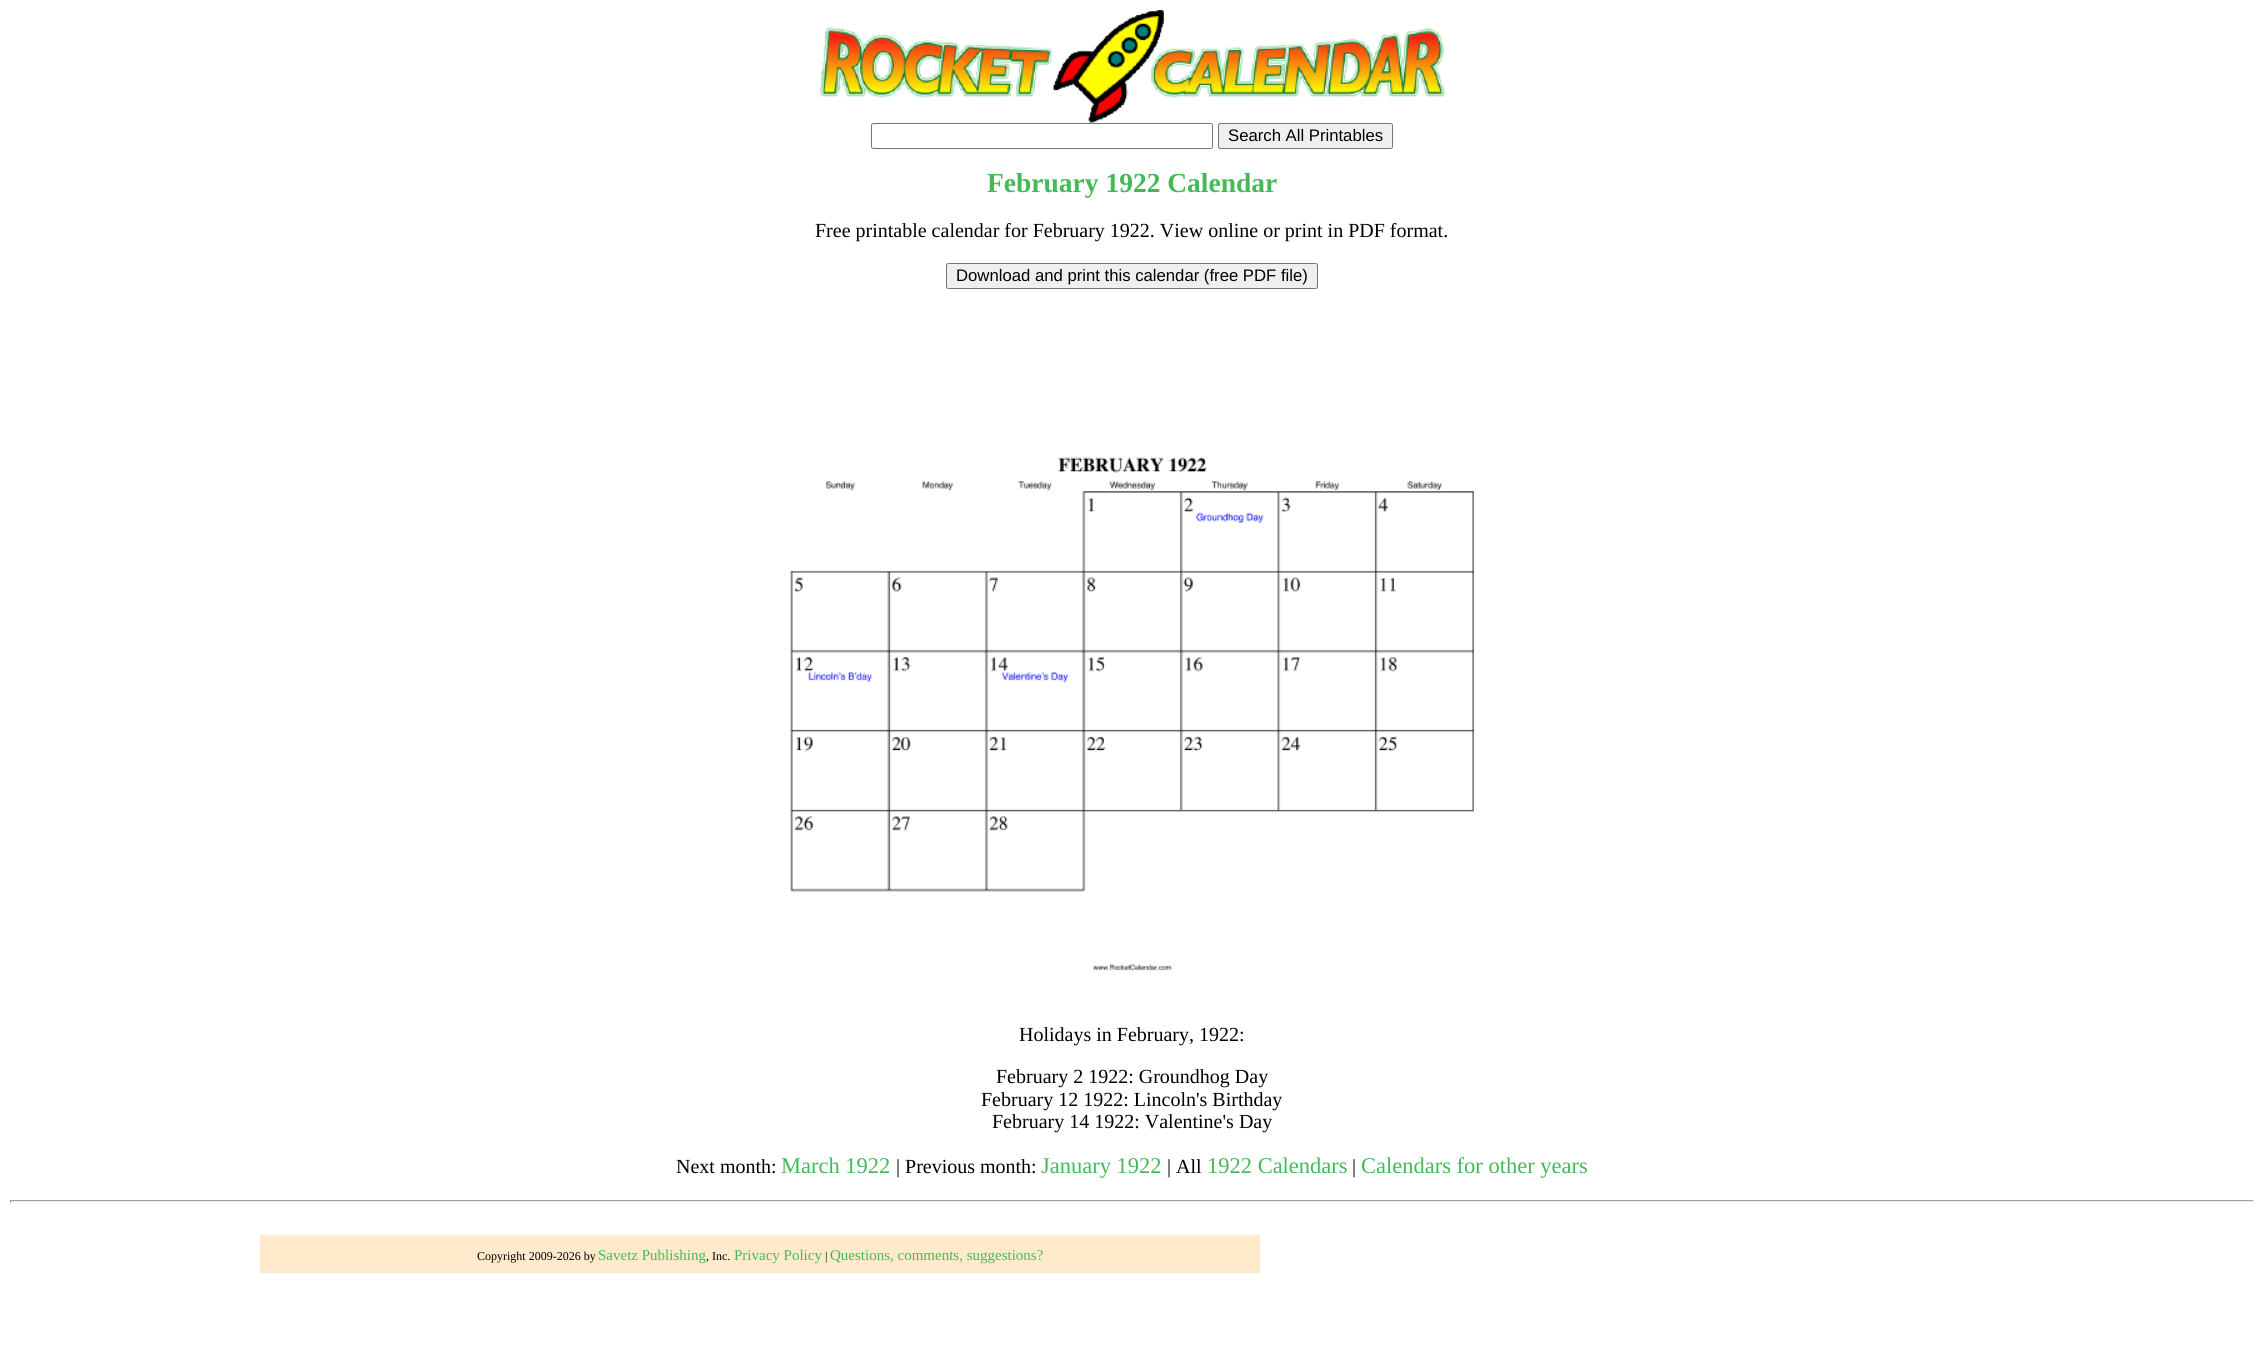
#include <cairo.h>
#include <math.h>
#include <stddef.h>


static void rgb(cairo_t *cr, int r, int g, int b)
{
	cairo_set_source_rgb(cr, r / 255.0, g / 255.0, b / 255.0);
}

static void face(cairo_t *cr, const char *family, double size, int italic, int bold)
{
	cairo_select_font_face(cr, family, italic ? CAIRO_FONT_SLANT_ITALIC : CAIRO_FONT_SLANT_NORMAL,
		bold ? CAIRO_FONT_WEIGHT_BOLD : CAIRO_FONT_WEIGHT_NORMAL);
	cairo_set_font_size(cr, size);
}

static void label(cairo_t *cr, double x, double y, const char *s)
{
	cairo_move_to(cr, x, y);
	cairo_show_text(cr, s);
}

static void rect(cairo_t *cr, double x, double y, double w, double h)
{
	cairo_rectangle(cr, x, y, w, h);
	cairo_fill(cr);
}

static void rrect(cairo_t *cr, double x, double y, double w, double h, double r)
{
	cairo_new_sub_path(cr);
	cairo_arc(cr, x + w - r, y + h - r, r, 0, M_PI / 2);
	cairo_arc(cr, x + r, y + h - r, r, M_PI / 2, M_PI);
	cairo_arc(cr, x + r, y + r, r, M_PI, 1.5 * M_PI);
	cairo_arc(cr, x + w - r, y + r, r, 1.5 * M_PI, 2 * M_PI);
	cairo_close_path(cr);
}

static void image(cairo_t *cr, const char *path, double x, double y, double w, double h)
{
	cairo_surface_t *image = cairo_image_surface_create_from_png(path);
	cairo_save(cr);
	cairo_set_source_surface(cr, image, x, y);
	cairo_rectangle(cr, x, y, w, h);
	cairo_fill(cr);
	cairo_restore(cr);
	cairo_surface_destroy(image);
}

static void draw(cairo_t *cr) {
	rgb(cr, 255, 255, 255);
	cairo_paint(cr);
	image(cr, "image0.png", 820, 10, 625, 113);
	rrect(cr, 871.5, 123.5, 341, 25, 2);
	rgb(cr, 118, 118, 118);
	cairo_set_line_width(cr, 1);
	cairo_stroke(cr);
	rgb(cr, 239, 239, 239);
	rrect(cr, 1218.5, 123.5, 174, 25, 2);
	cairo_fill_preserve(cr);
	rgb(cr, 118, 118, 118);
	cairo_stroke(cr);
	face(cr, "Liberation Sans", 16.7, 0, 0);
	rgb(cr, 0, 0, 0);
	label(cr, 1228, 141, "Search All Printables");
	face(cr, "Liberation Serif", 27.5, 0, 1);
	rgb(cr, 69, 185, 88);
	label(cr, 987, 192, "February 1922 Calendar");
	face(cr, "Liberation Serif", 20, 0, 0);
	rgb(cr, 0, 0, 0);
	label(cr, 815, 237, "Free printable calendar for February 1922. View online or print in PDF format.");
	rgb(cr, 239, 239, 239);
	rrect(cr, 946.5, 263.5, 371, 25, 2);
	cairo_fill_preserve(cr);
	rgb(cr, 118, 118, 118);
	cairo_stroke(cr);
	face(cr, "Liberation Sans", 16.7, 0, 0);
	rgb(cr, 0, 0, 0);
	label(cr, 956, 281, "Download and print this calendar (free PDF file)");
	image(cr, "image1.png", 790, 457, 685, 514);
	face(cr, "Liberation Serif", 20, 0, 0);
	label(cr, 1019, 1041, "Holidays in February, 1922:");
	label(cr, 996, 1083, "February 2 1922: Groundhog Day");
	label(cr, 981, 1106, "February 12 1922: Lincoln's Birthday");
	label(cr, 992, 1128, "February 14 1922: Valentine's Day");
	label(cr, 676, 1173, "Next month:");
	face(cr, "Liberation Serif", 22.5, 0, 0);
	rgb(cr, 69, 185, 88);
	label(cr, 781, 1173, "March 1922");
	face(cr, "Liberation Serif", 20, 0, 0);
	rgb(cr, 0, 0, 0);
	label(cr, 896, 1173, "| Previous month:");
	face(cr, "Liberation Serif", 22.5, 0, 0);
	rgb(cr, 69, 185, 88);
	label(cr, 1041, 1173, "January 1922");
	face(cr, "Liberation Serif", 20, 0, 0);
	rgb(cr, 0, 0, 0);
	label(cr, 1167, 1173, "| All");
	face(cr, "Liberation Serif", 22.5, 0, 0);
	rgb(cr, 69, 185, 88);
	label(cr, 1207, 1173, "1922 Calendars");
	face(cr, "Liberation Serif", 20, 0, 0);
	rgb(cr, 0, 0, 0);
	label(cr, 1352, 1173, "|");
	face(cr, "Liberation Serif", 22.5, 0, 0);
	rgb(cr, 69, 185, 88);
	label(cr, 1361, 1173, "Calendars for other years");
	rgb(cr, 159, 159, 159);
	rect(cr, 10, 1200, 2244, 1);
	rgb(cr, 238, 238, 238);
	rect(cr, 2253, 1200, 1, 3);
	rect(cr, 10, 1201, 2244, 1);
	rgb(cr, 159, 159, 159);
	rect(cr, 10, 1200, 1, 3);
	rgb(cr, 255, 235, 204);
	rect(cr, 260, 1235, 1000, 38);
	face(cr, "Liberation Serif", 12, 0, 0);
	rgb(cr, 0, 0, 0);
	label(cr, 477, 1260, "Copyright 2009-2026 by");
	face(cr, "Liberation Serif", 15, 0, 0);
	rgb(cr, 69, 185, 88);
	label(cr, 598, 1260, "Savetz Publishing");
	face(cr, "Liberation Serif", 12, 0, 0);
	rgb(cr, 0, 0, 0);
	label(cr, 706, 1260, ", Inc.");
	face(cr, "Liberation Serif", 15, 0, 0);
	rgb(cr, 69, 185, 88);
	label(cr, 734, 1260, "Privacy Policy");
	face(cr, "Liberation Serif", 12, 0, 0);
	rgb(cr, 0, 0, 0);
	label(cr, 825, 1260, "|");
	face(cr, "Liberation Serif", 15, 0, 0);
	rgb(cr, 69, 185, 88);
	label(cr, 830, 1260, "Questions, comments, suggestions?");
}

int main(void) {
	cairo_surface_t *surface = cairo_image_surface_create(CAIRO_FORMAT_RGB24, 2263, 1355);
	cairo_t *cr = cairo_create(surface);
	cairo_font_options_t *options = cairo_font_options_create();
	cairo_font_options_set_hint_metrics(options, CAIRO_HINT_METRICS_OFF);
	cairo_font_options_set_hint_style(options, CAIRO_HINT_STYLE_NONE);
	cairo_set_font_options(cr, options);
	cairo_set_miter_limit(cr, 4);
	draw(cr);
	cairo_surface_write_to_png(surface, "render.png");
	cairo_font_options_destroy(options);
	cairo_destroy(cr);
	cairo_surface_destroy(surface);
	return 0;
}
